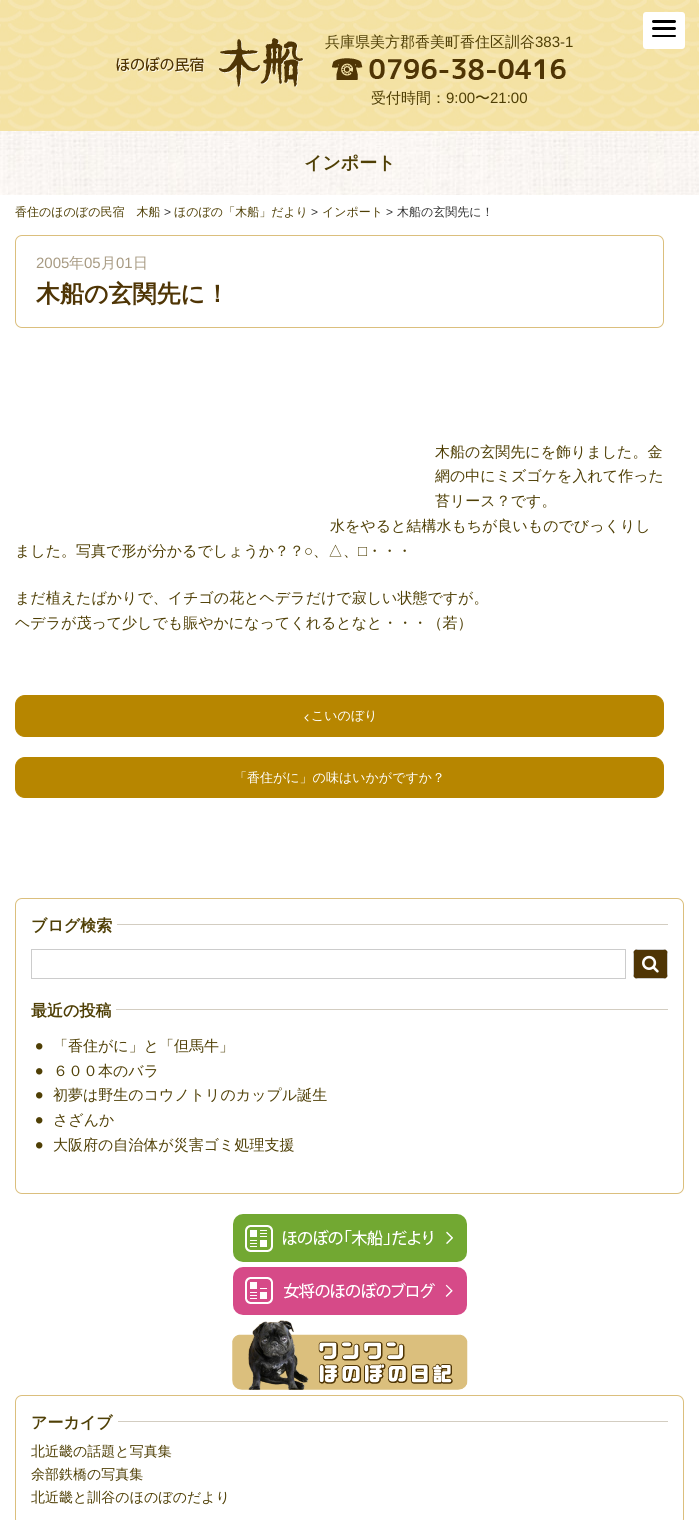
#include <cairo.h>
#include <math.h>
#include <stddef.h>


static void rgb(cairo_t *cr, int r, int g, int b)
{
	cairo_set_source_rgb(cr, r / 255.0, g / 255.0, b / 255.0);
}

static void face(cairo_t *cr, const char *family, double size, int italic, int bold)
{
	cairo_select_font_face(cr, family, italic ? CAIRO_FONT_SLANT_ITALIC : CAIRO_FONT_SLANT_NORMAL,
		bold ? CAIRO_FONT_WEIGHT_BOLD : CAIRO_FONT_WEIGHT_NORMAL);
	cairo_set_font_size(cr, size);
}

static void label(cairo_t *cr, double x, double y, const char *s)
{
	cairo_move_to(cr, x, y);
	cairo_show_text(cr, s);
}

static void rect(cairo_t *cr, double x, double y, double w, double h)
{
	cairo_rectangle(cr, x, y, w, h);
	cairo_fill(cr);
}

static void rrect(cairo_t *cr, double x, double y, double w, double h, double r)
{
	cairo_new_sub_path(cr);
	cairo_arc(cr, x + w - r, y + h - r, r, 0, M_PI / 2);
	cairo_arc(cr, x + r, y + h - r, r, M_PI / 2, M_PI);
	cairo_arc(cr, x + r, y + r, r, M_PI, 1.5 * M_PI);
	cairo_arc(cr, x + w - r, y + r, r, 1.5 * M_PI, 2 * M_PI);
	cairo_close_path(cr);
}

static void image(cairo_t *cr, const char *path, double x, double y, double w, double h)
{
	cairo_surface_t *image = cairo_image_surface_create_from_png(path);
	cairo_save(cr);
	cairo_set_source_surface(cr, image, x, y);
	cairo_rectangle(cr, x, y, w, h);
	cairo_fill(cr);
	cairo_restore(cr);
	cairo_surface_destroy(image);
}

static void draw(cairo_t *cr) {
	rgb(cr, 255, 255, 255);
	cairo_paint(cr);
	image(cr, "image0.png", 0, 0, 699, 131);
	image(cr, "image1.png", 116, 38, 188, 50);
	face(cr, "WenQuanYi Zen Hei Medium", 15, 0, 0);
	rgb(cr, 79, 63, 5);
	label(cr, 325, 47, "兵庫県美方郡香美町香住区訓谷");
	face(cr, "Liberation Sans", 15, 0, 0);
	label(cr, 535, 47, "383-1");
	image(cr, "image2.png", 332, 58, 234, 22);
	face(cr, "WenQuanYi Zen Hei Medium", 15, 0, 0);
	label(cr, 371, 103, "受付時間：");
	face(cr, "Liberation Sans", 15, 0, 0);
	label(cr, 446, 103, "9:00");
	face(cr, "WenQuanYi Zen Hei Medium", 15, 0, 0);
	label(cr, 475, 103, "〜");
	face(cr, "Liberation Sans", 15, 0, 0);
	label(cr, 490, 103, "21:00");
	image(cr, "image3.png", 0, 131, 699, 64);
	face(cr, "WenQuanYi Zen Hei", 18, 0, 1);
	label(cr, 304, 169, "インポート");
	face(cr, "WenQuanYi Zen Hei Medium", 12, 0, 0);
	label(cr, 15, 216, "香住のほのぼの民宿　木船");
	face(cr, "Liberation Sans", 12, 0, 0);
	rgb(cr, 51, 51, 51);
	label(cr, 164, 216, ">");
	face(cr, "WenQuanYi Zen Hei Medium", 12, 0, 0);
	rgb(cr, 79, 63, 5);
	label(cr, 174, 216, "ほのぼの「木船」だより");
	face(cr, "Liberation Sans", 12, 0, 0);
	rgb(cr, 51, 51, 51);
	label(cr, 311, 216, ">");
	face(cr, "WenQuanYi Zen Hei Medium", 12, 0, 0);
	rgb(cr, 79, 63, 5);
	label(cr, 322, 216, "インポート");
	face(cr, "Liberation Sans", 12, 0, 0);
	rgb(cr, 51, 51, 51);
	label(cr, 386, 216, ">");
	face(cr, "WenQuanYi Zen Hei Medium", 12, 0, 0);
	label(cr, 397, 216, "木船の玄関先に！");
	rrect(cr, 15.5, 235.5, 648, 92, 6.5);
	rgb(cr, 219, 191, 125);
	cairo_set_line_width(cr, 1);
	cairo_stroke(cr);
	face(cr, "Liberation Sans", 15, 0, 0);
	rgb(cr, 167, 154, 130);
	label(cr, 36, 268, "2005");
	face(cr, "WenQuanYi Zen Hei Medium", 15, 0, 0);
	label(cr, 69, 268, "年");
	face(cr, "Liberation Sans", 15, 0, 0);
	label(cr, 84, 268, "05");
	face(cr, "WenQuanYi Zen Hei Medium", 15, 0, 0);
	label(cr, 101, 268, "月");
	face(cr, "Liberation Sans", 15, 0, 0);
	label(cr, 116, 268, "01");
	face(cr, "WenQuanYi Zen Hei Medium", 15, 0, 0);
	label(cr, 133, 268, "日");
	face(cr, "WenQuanYi Zen Hei", 24, 0, 1);
	rgb(cr, 79, 53, 5);
	label(cr, 36, 302, "木船の玄関先に！");
	face(cr, "WenQuanYi Zen Hei Medium", 15, 0, 0);
	rgb(cr, 79, 63, 5);
	label(cr, 435, 457, "木船の玄関先にを飾りました。金");
	label(cr, 435, 481, "網の中にミズゴケを入れて作った");
	label(cr, 435, 506, "苔リース？です。");
	label(cr, 330, 531, "水をやると結構水もちが良いものでびっくりし");
	label(cr, 15, 556, "ました。写真で形が分かるでしょうか？？");
	face(cr, "Liberation Sans", 15, 0, 0);
	label(cr, 304, 556, "○");
	face(cr, "WenQuanYi Zen Hei Medium", 15, 0, 0);
	label(cr, 313, 556, "、△、");
	face(cr, "Liberation Sans", 15, 0, 0);
	label(cr, 358, 556, "□");
	face(cr, "WenQuanYi Zen Hei Medium", 15, 0, 0);
	label(cr, 367, 556, "・・・");
	label(cr, 15, 603, "まだ植えたばかりで、イチゴの花とヘデラだけで寂しい状態ですが。");
	label(cr, 15, 628, "ヘデラが茂って少しでも賑やかになってくれるとなと・・・（若）");
	rgb(cr, 183, 134, 0);
	rrect(cr, 15.5, 695.5, 648, 41, 9.5);
	cairo_fill_preserve(cr);
	cairo_stroke(cr);
	image(cr, "image4.png", 304, 714, 5, 8);
	face(cr, "WenQuanYi Zen Hei Medium", 13, 0, 0);
	rgb(cr, 255, 255, 255);
	label(cr, 311, 720, "こいのぼり");
	rgb(cr, 183, 134, 0);
	rrect(cr, 15.5, 757.5, 648, 40, 9.5);
	cairo_fill_preserve(cr);
	cairo_stroke(cr);
	rgb(cr, 255, 255, 255);
	label(cr, 234, 782, "「香住がに」の味はいかがですか？");
	rrect(cr, 15.5, 898.5, 668, 295, 6.5);
	rgb(cr, 219, 191, 125);
	cairo_stroke(cr);
	face(cr, "WenQuanYi Zen Hei", 16, 0, 1);
	rgb(cr, 79, 63, 5);
	label(cr, 31, 931, "ブログ検索");
	rgb(cr, 211, 205, 193);
	rect(cr, 117, 924, 551, 1);
	cairo_rectangle(cr, 31.5, 949.5, 594, 29);
	rgb(cr, 204, 204, 204);
	cairo_stroke(cr);
	rgb(cr, 79, 53, 5);
	rrect(cr, 633, 949, 35, 30, 5);
	cairo_fill(cr);
	rgb(cr, 204, 204, 204);
	cairo_set_fill_rule(cr, CAIRO_FILL_RULE_EVEN_ODD);
	cairo_new_path(cr);
	cairo_move_to(cr, 633, 954);
	cairo_line_to(cr, 633, 974);
	cairo_curve_to(cr, 633, 975, 633.5, 976, 634, 977);
	cairo_line_to(cr, 634, 951);
	cairo_curve_to(cr, 633.5, 952, 633, 953, 633, 954);
	cairo_close_path(cr);
	cairo_move_to(cr, 638, 949);
	cairo_curve_to(cr, 637, 949, 636, 949.5, 635, 950);
	cairo_line_to(cr, 666, 950);
	cairo_curve_to(cr, 665, 949.5, 664, 949, 663, 949);
	cairo_close_path(cr);
	cairo_move_to(cr, 668, 954);
	cairo_curve_to(cr, 668, 953, 667.5, 952, 667, 951);
	cairo_line_to(cr, 667, 977);
	cairo_curve_to(cr, 667.5, 976, 668, 975, 668, 974);
	cairo_close_path(cr);
	cairo_move_to(cr, 663, 979);
	cairo_curve_to(cr, 664, 979, 665, 978.5, 666, 978);
	cairo_line_to(cr, 635, 978);
	cairo_curve_to(cr, 636, 978.5, 637, 979, 638, 979);
	cairo_close_path(cr);
	cairo_fill(cr);
	image(cr, "image5.png", 642, 955, 17, 18);
	rgb(cr, 79, 63, 5);
	label(cr, 31, 1016, "最近の投稿");
	rgb(cr, 211, 205, 193);
	rect(cr, 116, 1009, 552, 1);
	image(cr, "image6.png", 36, 1043, 7, 7);
	face(cr, "WenQuanYi Zen Hei Medium", 15, 0, 0);
	rgb(cr, 79, 63, 5);
	label(cr, 53, 1051, "「香住がに」と「但馬牛」");
	image(cr, "image6.png", 36, 1068, 7, 7);
	label(cr, 53, 1076, "６００本のバラ");
	image(cr, "image6.png", 36, 1092, 7, 7);
	label(cr, 53, 1100, "初夢は野生のコウノトリのカップル誕生");
	image(cr, "image6.png", 36, 1117, 7, 7);
	label(cr, 53, 1125, "さざんか");
	image(cr, "image6.png", 36, 1142, 7, 7);
	label(cr, 53, 1150, "大阪府の自治体が災害ゴミ処理支援");
	image(cr, "image7.png", 233, 1214, 234, 48);
	image(cr, "image8.png", 233, 1267, 234, 48);
	image(cr, "image9.png", 232, 1320, 236, 70);
	rrect(cr, 15.5, 1395.5, 668, 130, 6.5);
	rgb(cr, 219, 191, 125);
	cairo_stroke(cr);
	face(cr, "WenQuanYi Zen Hei", 16, 0, 1);
	rgb(cr, 79, 63, 5);
	label(cr, 31, 1428, "アーカイブ");
	rgb(cr, 211, 205, 193);
	rect(cr, 118, 1421, 550, 1);
	face(cr, "WenQuanYi Zen Hei Medium", 14, 0, 0);
	rgb(cr, 79, 63, 5);
	label(cr, 31, 1456, "北近畿の話題と写真集");
	label(cr, 31, 1479, "余部鉄橋の写真集");
	label(cr, 31, 1502, "北近畿と訓谷のほのぼのだより");
	rgb(cr, 255, 255, 255);
	rrect(cr, 643, 12, 42, 37, 3);
	cairo_fill(cr);
	rgb(cr, 0, 0, 0);
	rrect(cr, 652, 27, 24, 3, 1.5);
	cairo_fill(cr);
	rrect(cr, 652, 20, 24, 3, 1.5);
	cairo_fill(cr);
	rrect(cr, 652, 35, 24, 2, 1);
	cairo_fill(cr);
}

int main(void) {
	cairo_surface_t *surface = cairo_image_surface_create(CAIRO_FORMAT_RGB24, 699, 1520);
	cairo_t *cr = cairo_create(surface);
	cairo_font_options_t *options = cairo_font_options_create();
	cairo_font_options_set_hint_metrics(options, CAIRO_HINT_METRICS_OFF);
	cairo_font_options_set_hint_style(options, CAIRO_HINT_STYLE_NONE);
	cairo_set_font_options(cr, options);
	cairo_set_miter_limit(cr, 4);
	draw(cr);
	cairo_surface_write_to_png(surface, "render.png");
	cairo_font_options_destroy(options);
	cairo_destroy(cr);
	cairo_surface_destroy(surface);
	return 0;
}
